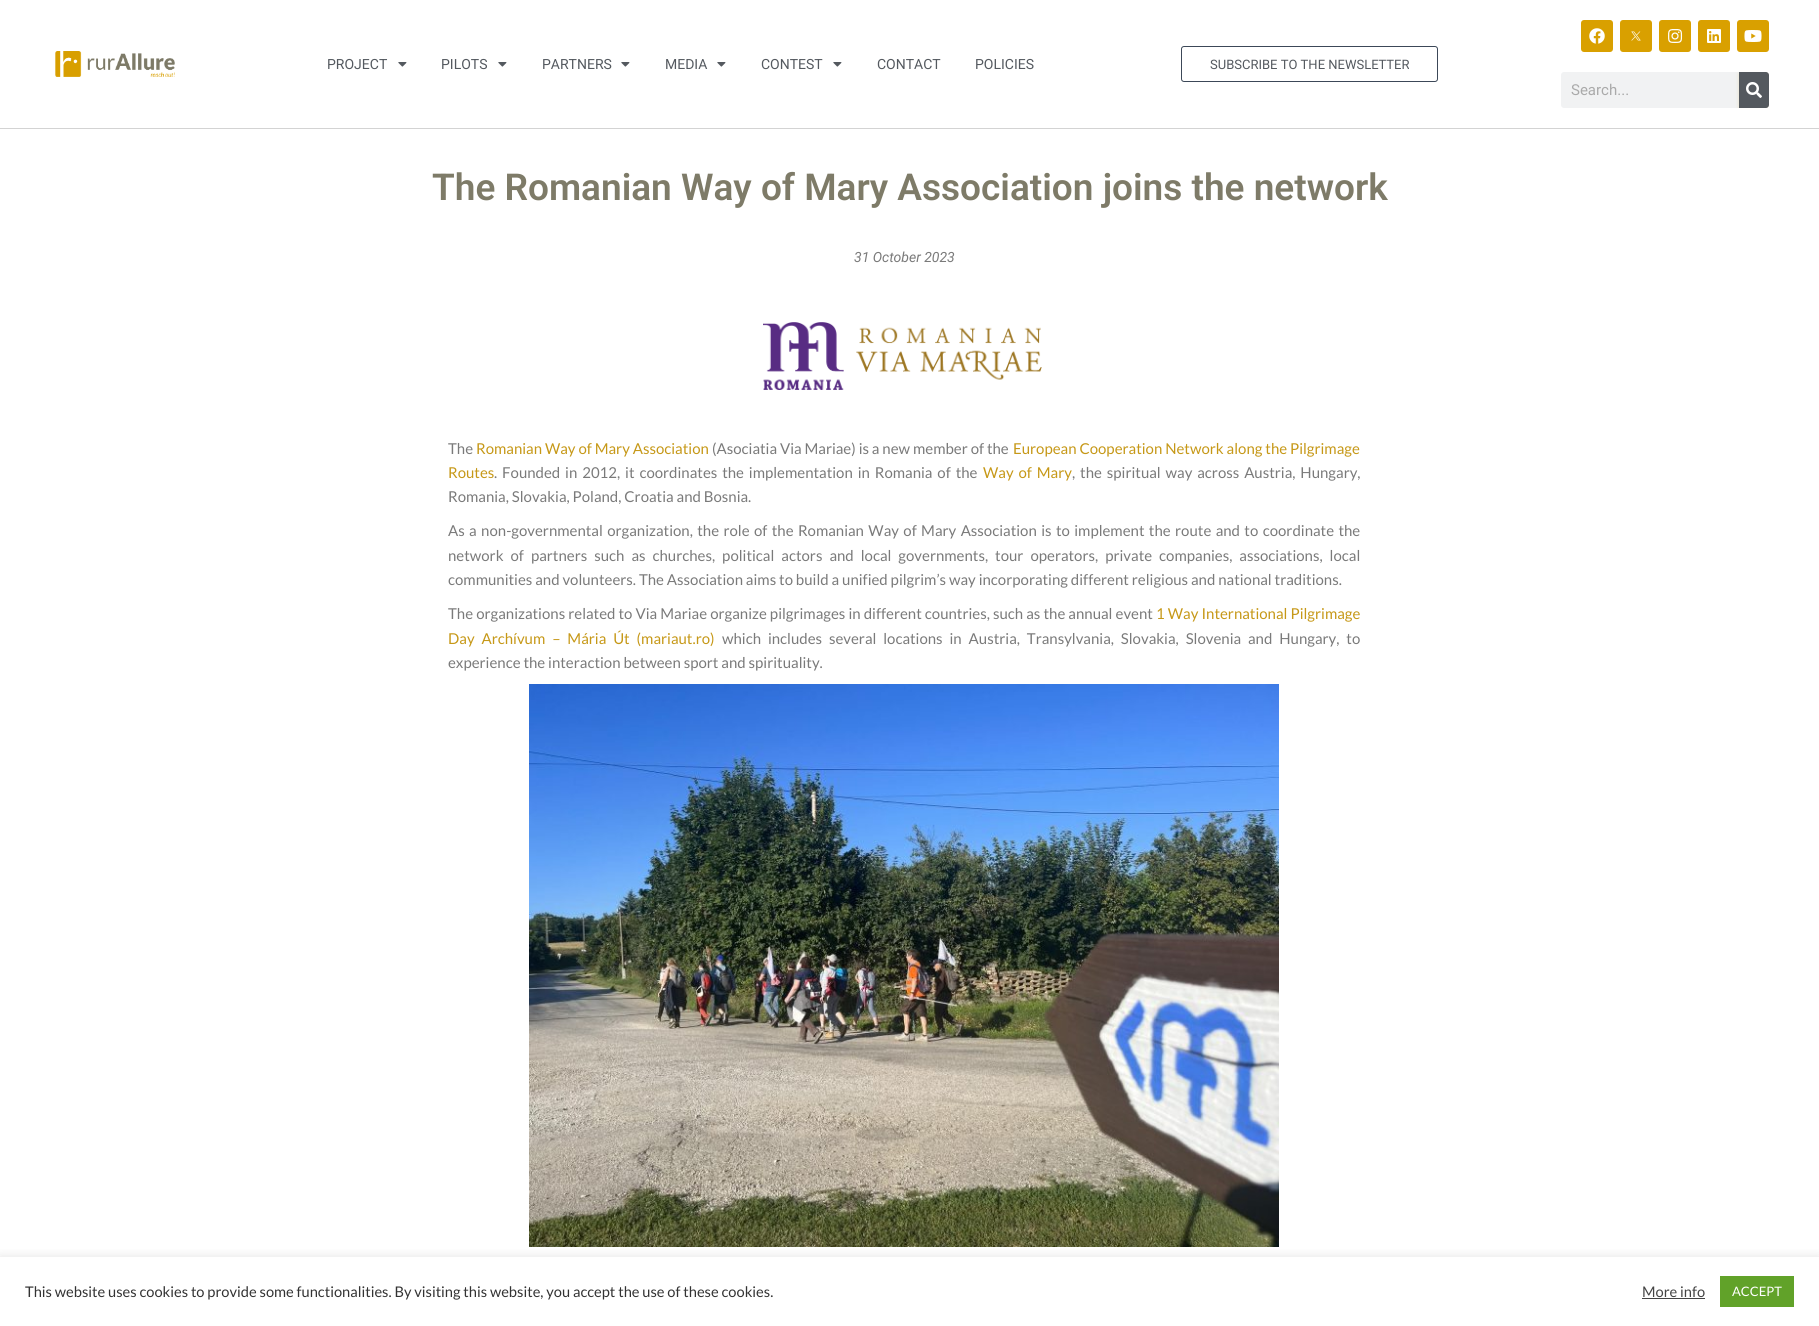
#include <cairo.h>
#include <math.h>
#include <stddef.h>


static void rgb(cairo_t *cr, int r, int g, int b)
{
	cairo_set_source_rgb(cr, r / 255.0, g / 255.0, b / 255.0);
}

static void face(cairo_t *cr, const char *family, double size, int italic, int bold)
{
	cairo_select_font_face(cr, family, italic ? CAIRO_FONT_SLANT_ITALIC : CAIRO_FONT_SLANT_NORMAL,
		bold ? CAIRO_FONT_WEIGHT_BOLD : CAIRO_FONT_WEIGHT_NORMAL);
	cairo_set_font_size(cr, size);
}

static void label(cairo_t *cr, double x, double y, const char *s)
{
	cairo_move_to(cr, x, y);
	cairo_show_text(cr, s);
}

static void tracked(cairo_t *cr, double x, double y, const char *s, double letter, double word)
{
	cairo_move_to(cr, x, y);
	while (*s) {
		char ch[5] = {0};
		int n = 0;
		do ch[n++] = *s++; while ((*s & 0xC0) == 0x80);
		cairo_show_text(cr, ch);
		cairo_rel_move_to(cr, letter + word * (*ch == ' '), 0);
	}
}

static void rect(cairo_t *cr, double x, double y, double w, double h)
{
	cairo_rectangle(cr, x, y, w, h);
	cairo_fill(cr);
}

static void rrect(cairo_t *cr, double x, double y, double w, double h, double r)
{
	cairo_new_sub_path(cr);
	cairo_arc(cr, x + w - r, y + h - r, r, 0, M_PI / 2);
	cairo_arc(cr, x + r, y + h - r, r, M_PI / 2, M_PI);
	cairo_arc(cr, x + r, y + r, r, M_PI, 1.5 * M_PI);
	cairo_arc(cr, x + w - r, y + r, r, 1.5 * M_PI, 2 * M_PI);
	cairo_close_path(cr);
}

static void soft_shadow(cairo_t *cr, double x, double y, double w, double h, double r, double blur, double alpha)
{
	cairo_push_group_with_content(cr, CAIRO_CONTENT_ALPHA);
	cairo_set_operator(cr, CAIRO_OPERATOR_SOURCE);
	for (int i = 15; i >= -15 && fmin(w, h) + blur * i / 3 > 0; i -= 2) {
		double e = blur * i / 6;
		cairo_set_source_rgba(cr, 0, 0, 0, alpha * erfc((i - 1) / 8.5) / 2);
		rrect(cr, x - e, y - e, w + 2 * e, h + 2 * e, fmax(0, fmin(r + e + blur * .6, fmin(w, h) / 2 + e)));
		cairo_fill(cr);
	}
	cairo_pattern_t *soft = cairo_pop_group(cr);
	cairo_mask(cr, soft);
	cairo_pattern_destroy(soft);
}

static void image(cairo_t *cr, const char *path, double x, double y, double w, double h)
{
	cairo_surface_t *image = cairo_image_surface_create_from_png(path);
	cairo_save(cr);
	cairo_set_source_surface(cr, image, x, y);
	cairo_rectangle(cr, x, y, w, h);
	cairo_fill(cr);
	cairo_restore(cr);
	cairo_surface_destroy(image);
}

static void draw(cairo_t *cr) {
	rgb(cr, 255, 255, 255);
	cairo_paint(cr);
	rgb(cr, 211, 211, 211);
	rect(cr, 0, 128, 1819, 1);
	image(cr, "image0.png", 55, 51, 120, 26);
	face(cr, "Roboto", 14, 0, 0);
	rgb(cr, 84, 89, 95);
	label(cr, 327, 69, "PROJECT");
	image(cr, "image1.png", 398, 62, 9, 5);
	label(cr, 441, 69, "PILOTS");
	image(cr, "image1.png", 498, 62, 9, 5);
	label(cr, 542, 69, "PARTNERS");
	image(cr, "image1.png", 621, 62, 9, 5);
	label(cr, 665, 69, "MEDIA");
	image(cr, "image1.png", 717, 62, 9, 5);
	label(cr, 761, 69, "CONTEST");
	image(cr, "image1.png", 833, 62, 9, 5);
	label(cr, 877, 69, "CONTACT");
	label(cr, 975, 69, "POLICIES");
	rrect(cr, 1181.5, 46.5, 256, 35, 2.5);
	rgb(cr, 60, 72, 88);
	cairo_set_line_width(cr, 1);
	cairo_stroke(cr);
	face(cr, "Roboto", 13, 0, 0);
	rgb(cr, 84, 89, 95);
	label(cr, 1210, 69, "SUBSCRIBE TO THE NEWSLETTER");
	rgb(cr, 217, 160, 0);
	rrect(cr, 1581, 20, 32, 32, 3);
	cairo_fill(cr);
	image(cr, "image2.png", 1589, 28, 16, 16);
	rrect(cr, 1620, 20, 32, 32, 3);
	cairo_fill(cr);
	image(cr, "image3.png", 1631, 31, 10, 10);
	rrect(cr, 1659, 20, 32, 32, 3);
	cairo_fill(cr);
	image(cr, "image4.png", 1668, 29, 15, 14);
	rrect(cr, 1698, 20, 32, 32, 3);
	cairo_fill(cr);
	image(cr, "image5.png", 1707, 29, 14, 14);
	rrect(cr, 1737, 20, 32, 32, 3);
	cairo_fill(cr);
	image(cr, "image6.png", 1744, 30, 18, 12);
	rgb(cr, 241, 242, 243);
	rrect(cr, 1561, 72, 208, 36, 3);
	cairo_fill(cr);
	face(cr, "Roboto", 15, 0, 0);
	rgb(cr, 170, 170, 170);
	label(cr, 1571, 95, "Search...");
	cairo_save(cr);
	rrect(cr, 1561, 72, 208, 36, 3);
	cairo_clip(cr);
	rgb(cr, 198, 152, 23);
	soft_shadow(cr, 1739, 73, 30, 36, 0, 2.5, 0.12);
	soft_shadow(cr, 1739, 74, 30, 36, 0, 1, 0.14);
	cairo_restore(cr);
	rgb(cr, 84, 89, 95);
	cairo_new_path(cr);
	cairo_move_to(cr, 1739, 72);
	cairo_line_to(cr, 1766, 72);
	cairo_curve_to(cr, 1767.5, 72, 1769, 73.5, 1769, 75);
	cairo_line_to(cr, 1769, 105);
	cairo_curve_to(cr, 1769, 106.5, 1767.5, 108, 1766, 108);
	cairo_line_to(cr, 1739, 108);
	cairo_close_path(cr);
	cairo_fill(cr);
	image(cr, "image7.png", 1746, 82, 16, 16);
	face(cr, "Roboto SemiBold", 37, 0, 0);
	rgb(cr, 126, 123, 104);
	label(cr, 432, 200, "The Romanian Way of Mary Association joins the network");
	face(cr, "Roboto", 14, 1, 0);
	rgb(cr, 122, 122, 122);
	label(cr, 854, 262, "31 October 2023");
	image(cr, "image8.png", 763, 322, 279, 68);
	face(cr, "Lato", 15, 0, 0);
	label(cr, 448, 454, "The");
	rgb(cr, 198, 152, 23);
	label(cr, 476, 454, "Romanian Way of Mary Association");
	rgb(cr, 122, 122, 122);
	label(cr, 712, 454, "(Asociatia Via Mariae) is a new member of the");
	rgb(cr, 198, 152, 23);
	label(cr, 1013, 454, "European Cooperation Network along the Pilgrimage");
	label(cr, 448, 478, "Routes");
	rgb(cr, 122, 122, 122);
	tracked(cr, 494, 478, ". Founded in 2012, it coordinates the implementation in Romania of the", 0, 2);
	rgb(cr, 198, 152, 23);
	tracked(cr, 983, 478, "Way of Mary", 0, 2);
	rgb(cr, 122, 122, 122);
	tracked(cr, 1072, 478, ", the spiritual way across Austria, Hungary,", 0, 2);
	label(cr, 448, 502, "Romania, Slovakia, Poland, Croatia and Bosnia.");
	tracked(cr, 448, 536, "As a non-governmental organization, the role of the Romanian Way of Mary Association is to implement the route and to coordinate the", 0, 1.5);
	tracked(cr, 448, 561, "network of partners such as churches, political actors and local governments, tour operators, private companies, associations, local", 0, 4.1);
	label(cr, 448, 585, "communities and volunteers. The Association aims to build a unified pilgrim’s way incorporating different religious and national traditions.");
	tracked(cr, 448, 619, "The organizations related to Via Mariae organize pilgrimages in different countries, such as the annual event", 0, 0.2);
	rgb(cr, 198, 152, 23);
	tracked(cr, 1156, 619, "1 Way International Pilgrimage", 0, 0.2);
	tracked(cr, 448, 644, "Day Archívum – Mária Út (mariaut.ro)", 0, 4);
	rgb(cr, 122, 122, 122);
	tracked(cr, 722, 644, "which includes several locations in Austria, Transylvania, Slovakia, Slovenia and Hungary, to", 0, 4);
	label(cr, 448, 668, "experience the interaction between sport and spirituality.");
	image(cr, "image9.png", 529, 684, 750, 563);
	cairo_save(cr);
	cairo_rectangle(cr, 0, 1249, 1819, 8);
	cairo_clip(cr);
	rgb(cr, 172, 171, 171);
	soft_shadow(cr, 0, 1256, 1819, 69, 0, 5, 0.3);
	cairo_restore(cr);
	face(cr, "Lato", 14.67, 0, 0);
	rgb(cr, 51, 51, 51);
	label(cr, 25, 1297, "This website uses cookies to provide some functionalities. By visiting this website, you accept the use of these cookies.");
	rgb(cr, 68, 68, 68);
	label(cr, 1642, 1297, "More info");
	rect(cr, 1642, 1298, 63, 1);
	rgb(cr, 97, 162, 41);
	rect(cr, 1720, 1276, 74, 31);
	face(cr, "Lato", 13, 0, 0);
	rgb(cr, 255, 255, 255);
	label(cr, 1732, 1296, "ACCEPT");
}

int main(void) {
	cairo_surface_t *surface = cairo_image_surface_create(CAIRO_FORMAT_RGB24, 1819, 1326);
	cairo_t *cr = cairo_create(surface);
	cairo_font_options_t *options = cairo_font_options_create();
	cairo_font_options_set_hint_metrics(options, CAIRO_HINT_METRICS_OFF);
	cairo_font_options_set_hint_style(options, CAIRO_HINT_STYLE_NONE);
	cairo_set_font_options(cr, options);
	cairo_set_miter_limit(cr, 4);
	draw(cr);
	cairo_surface_write_to_png(surface, "render.png");
	cairo_font_options_destroy(options);
	cairo_destroy(cr);
	cairo_surface_destroy(surface);
	return 0;
}
